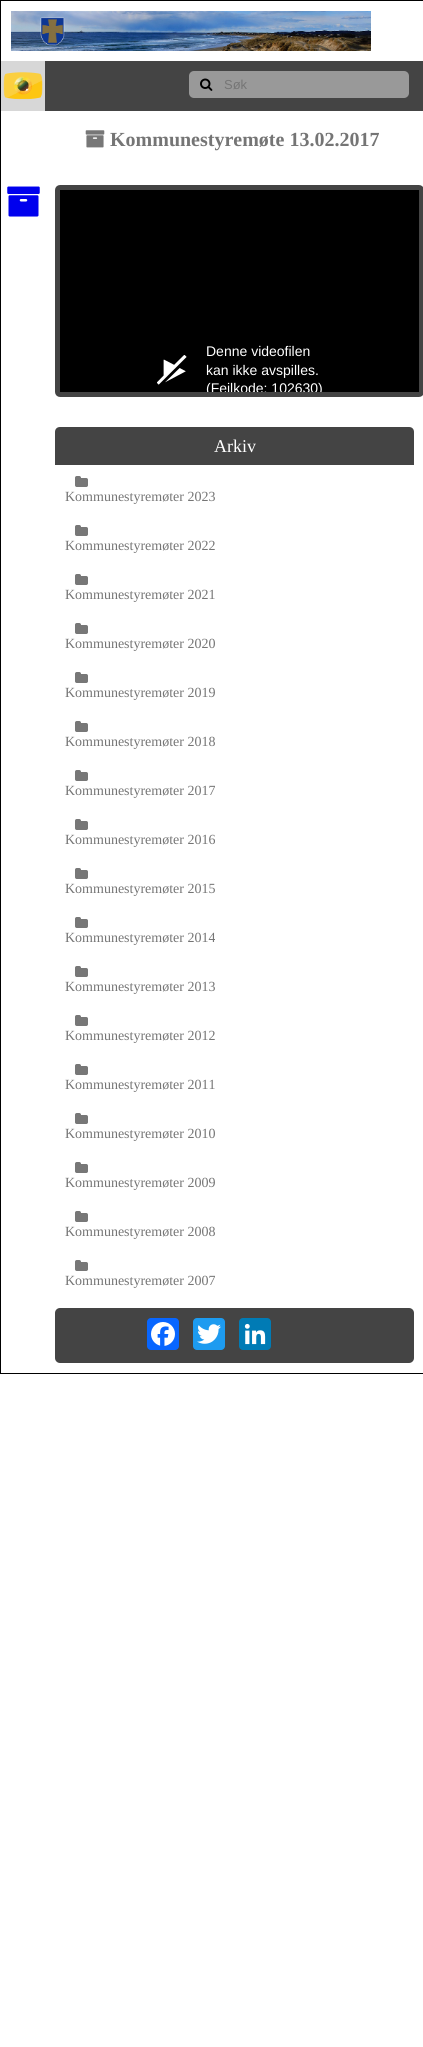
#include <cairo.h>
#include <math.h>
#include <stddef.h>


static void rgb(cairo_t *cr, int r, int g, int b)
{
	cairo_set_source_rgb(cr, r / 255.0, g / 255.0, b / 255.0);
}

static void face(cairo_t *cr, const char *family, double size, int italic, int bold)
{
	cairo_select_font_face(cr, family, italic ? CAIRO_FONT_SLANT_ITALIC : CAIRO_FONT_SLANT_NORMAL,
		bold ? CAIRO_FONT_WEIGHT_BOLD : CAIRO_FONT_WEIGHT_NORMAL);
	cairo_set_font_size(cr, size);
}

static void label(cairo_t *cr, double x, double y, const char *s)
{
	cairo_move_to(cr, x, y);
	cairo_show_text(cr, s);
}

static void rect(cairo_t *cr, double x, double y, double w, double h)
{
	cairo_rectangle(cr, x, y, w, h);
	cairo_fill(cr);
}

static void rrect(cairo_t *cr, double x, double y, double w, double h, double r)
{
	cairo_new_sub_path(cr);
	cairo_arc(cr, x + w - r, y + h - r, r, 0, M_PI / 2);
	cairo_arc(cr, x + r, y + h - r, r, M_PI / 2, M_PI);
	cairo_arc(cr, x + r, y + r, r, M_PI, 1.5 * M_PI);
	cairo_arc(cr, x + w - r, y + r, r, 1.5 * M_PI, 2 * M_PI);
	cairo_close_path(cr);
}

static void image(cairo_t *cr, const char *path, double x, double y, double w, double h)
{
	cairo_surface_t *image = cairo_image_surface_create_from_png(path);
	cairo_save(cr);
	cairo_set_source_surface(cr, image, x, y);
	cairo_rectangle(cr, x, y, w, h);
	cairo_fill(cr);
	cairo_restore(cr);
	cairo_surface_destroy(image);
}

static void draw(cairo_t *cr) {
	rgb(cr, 255, 255, 255);
	cairo_paint(cr);
	cairo_rectangle(cr, 0.5, 0.5, 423, 1373);
	rgb(cr, 0, 0, 0);
	cairo_set_line_width(cr, 1);
	cairo_stroke(cr);
	image(cr, "image0.png", 11, 11, 360, 40);
	rgb(cr, 68, 68, 68);
	rect(cr, 45, 61, 378, 50);
	rgb(cr, 215, 215, 215);
	rect(cr, 1, 61, 44, 50);
	image(cr, "image1.png", 3, 72, 40, 28);
	rgb(cr, 153, 153, 153);
	rrect(cr, 189, 71, 220, 27, 5);
	cairo_fill(cr);
	image(cr, "image2.png", 200, 78, 13, 13);
	face(cr, "Liberation Sans", 13, 0, 0);
	rgb(cr, 117, 117, 117);
	label(cr, 224, 89, "Søk");
	image(cr, "image3.png", 85, 130, 20, 18);
	face(cr, "Liberation Serif", 20, 0, 1);
	label(cr, 110, 146, "Kommunestyremøte 13.02.2017");
	image(cr, "image4.png", 7, 186, 33, 31);
	rgb(cr, 0, 0, 0);
	rrect(cr, 57.5, 187.5, 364, 207, 2.5);
	cairo_fill_preserve(cr);
	rgb(cr, 68, 68, 68);
	cairo_set_line_width(cr, 5);
	cairo_stroke(cr);
	image(cr, "image5.png", 157, 355, 30, 30);
	face(cr, "Liberation Sans", 14, 0, 0);
	rgb(cr, 255, 255, 255);
	label(cr, 206, 356, "Denne videofilen");
	label(cr, 206, 375, "kan ikke avspilles.");
	cairo_save(cr);
	cairo_rectangle(cr, 60, 190, 359, 202);
	cairo_clip(cr);
	label(cr, 206, 393, "(Feilkode: 102630)");
	cairo_restore(cr);
	rgb(cr, 68, 68, 68);
	cairo_new_path(cr);
	cairo_move_to(cr, 60, 427);
	cairo_line_to(cr, 409, 427);
	cairo_curve_to(cr, 412, 427, 414, 429, 414, 432);
	cairo_line_to(cr, 414, 465);
	cairo_line_to(cr, 55, 465);
	cairo_line_to(cr, 55, 432);
	cairo_curve_to(cr, 55, 429, 57, 427, 60, 427);
	cairo_close_path(cr);
	cairo_fill(cr);
	face(cr, "Liberation Serif", 18, 0, 0);
	rgb(cr, 255, 255, 255);
	label(cr, 214, 452, "Arkiv");
	image(cr, "image6.png", 75, 476, 13, 11);
	face(cr, "Liberation Serif", 14, 0, 0);
	rgb(cr, 117, 117, 117);
	label(cr, 65, 501, "Kommunestyremøter 2023");
	image(cr, "image6.png", 75, 525, 13, 11);
	label(cr, 65, 550, "Kommunestyremøter 2022");
	image(cr, "image6.png", 75, 574, 13, 11);
	label(cr, 65, 599, "Kommunestyremøter 2021");
	image(cr, "image6.png", 75, 623, 13, 11);
	label(cr, 65, 648, "Kommunestyremøter 2020");
	image(cr, "image6.png", 75, 672, 13, 11);
	label(cr, 65, 697, "Kommunestyremøter 2019");
	image(cr, "image6.png", 75, 721, 13, 11);
	label(cr, 65, 746, "Kommunestyremøter 2018");
	image(cr, "image6.png", 75, 770, 13, 11);
	label(cr, 65, 795, "Kommunestyremøter 2017");
	image(cr, "image6.png", 75, 819, 13, 11);
	label(cr, 65, 844, "Kommunestyremøter 2016");
	image(cr, "image6.png", 75, 868, 13, 11);
	label(cr, 65, 893, "Kommunestyremøter 2015");
	image(cr, "image6.png", 75, 917, 13, 11);
	label(cr, 65, 942, "Kommunestyremøter 2014");
	image(cr, "image6.png", 75, 966, 13, 11);
	label(cr, 65, 991, "Kommunestyremøter 2013");
	image(cr, "image6.png", 75, 1015, 13, 11);
	label(cr, 65, 1040, "Kommunestyremøter 2012");
	image(cr, "image6.png", 75, 1064, 13, 11);
	label(cr, 65, 1089, "Kommunestyremøter 2011");
	image(cr, "image6.png", 75, 1113, 13, 11);
	label(cr, 65, 1138, "Kommunestyremøter 2010");
	image(cr, "image6.png", 75, 1162, 13, 11);
	label(cr, 65, 1187, "Kommunestyremøter 2009");
	image(cr, "image6.png", 75, 1211, 13, 11);
	label(cr, 65, 1236, "Kommunestyremøter 2008");
	image(cr, "image6.png", 75, 1260, 13, 11);
	label(cr, 65, 1285, "Kommunestyremøter 2007");
	rgb(cr, 68, 68, 68);
	rrect(cr, 55, 1308, 359, 55, 5);
	cairo_fill(cr);
	rgb(cr, 8, 102, 255);
	rrect(cr, 147, 1318, 32, 32, 4);
	cairo_fill(cr);
	image(cr, "image7.png", 151, 1322, 24, 24);
	rgb(cr, 29, 155, 240);
	rrect(cr, 193, 1318, 32, 32, 4);
	cairo_fill(cr);
	image(cr, "image8.png", 197, 1324, 24, 20);
	rgb(cr, 0, 123, 181);
	rrect(cr, 239, 1318, 32, 32, 4);
	cairo_fill(cr);
	image(cr, "image9.png", 244, 1323, 22, 22);
}

int main(void) {
	cairo_surface_t *surface = cairo_image_surface_create(CAIRO_FORMAT_RGB24, 423, 2047);
	cairo_t *cr = cairo_create(surface);
	cairo_font_options_t *options = cairo_font_options_create();
	cairo_font_options_set_hint_metrics(options, CAIRO_HINT_METRICS_OFF);
	cairo_font_options_set_hint_style(options, CAIRO_HINT_STYLE_NONE);
	cairo_set_font_options(cr, options);
	cairo_set_miter_limit(cr, 4);
	draw(cr);
	cairo_surface_write_to_png(surface, "render.png");
	cairo_font_options_destroy(options);
	cairo_destroy(cr);
	cairo_surface_destroy(surface);
	return 0;
}
